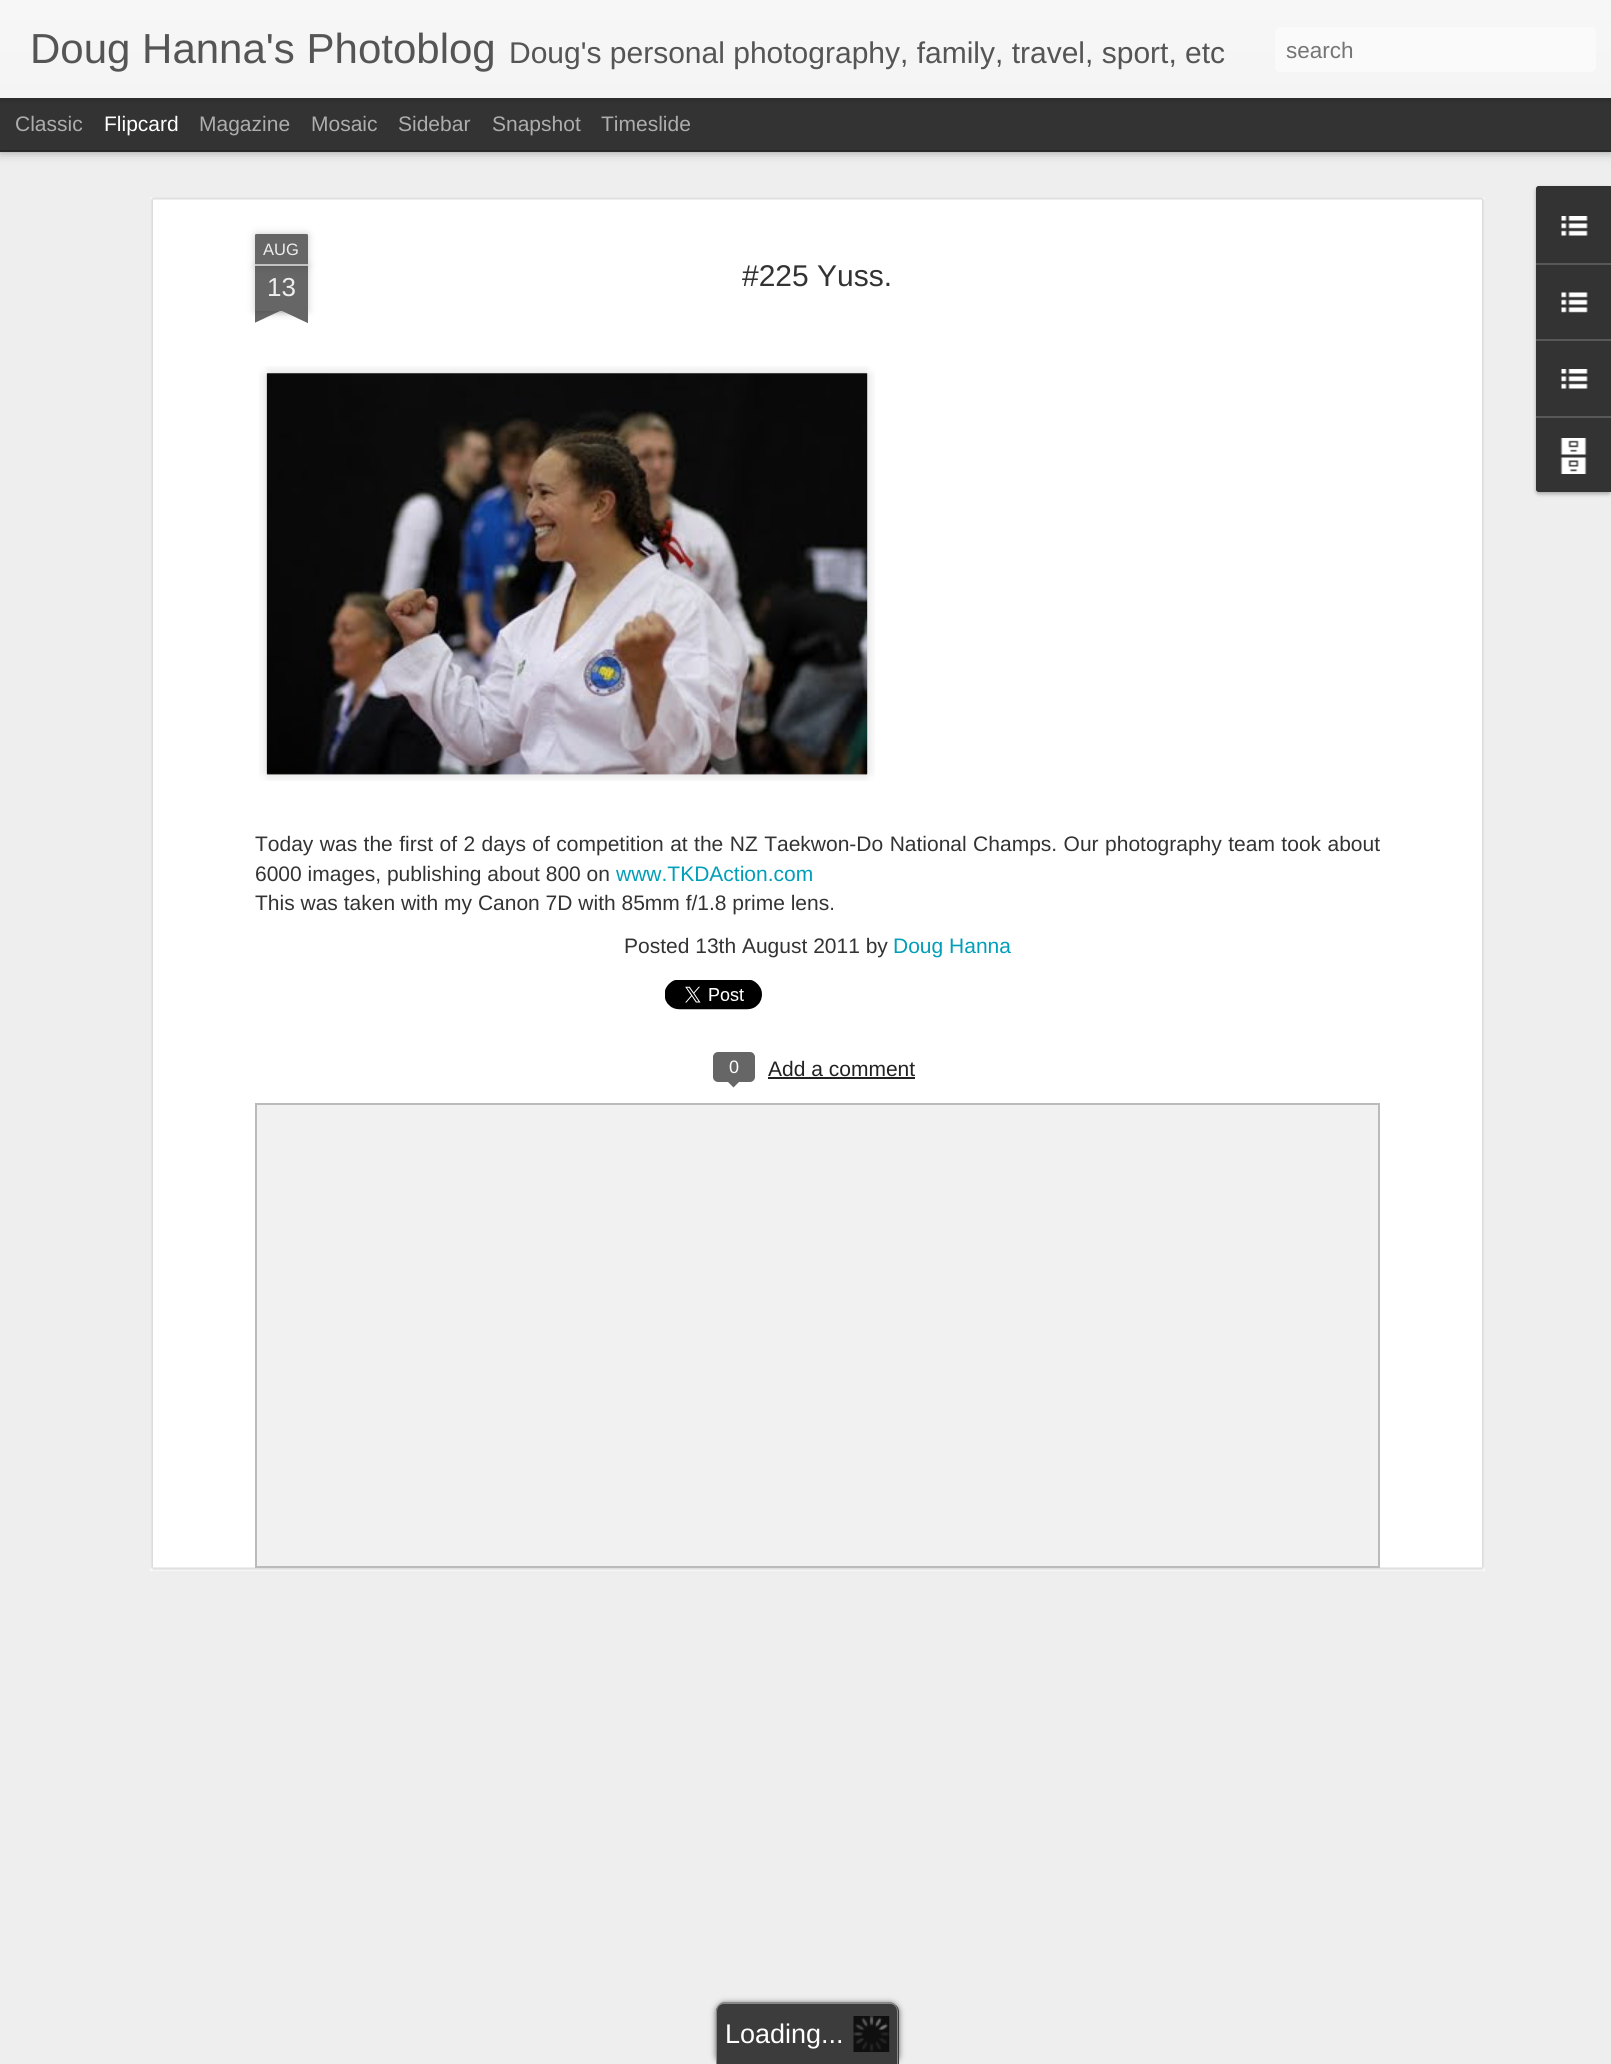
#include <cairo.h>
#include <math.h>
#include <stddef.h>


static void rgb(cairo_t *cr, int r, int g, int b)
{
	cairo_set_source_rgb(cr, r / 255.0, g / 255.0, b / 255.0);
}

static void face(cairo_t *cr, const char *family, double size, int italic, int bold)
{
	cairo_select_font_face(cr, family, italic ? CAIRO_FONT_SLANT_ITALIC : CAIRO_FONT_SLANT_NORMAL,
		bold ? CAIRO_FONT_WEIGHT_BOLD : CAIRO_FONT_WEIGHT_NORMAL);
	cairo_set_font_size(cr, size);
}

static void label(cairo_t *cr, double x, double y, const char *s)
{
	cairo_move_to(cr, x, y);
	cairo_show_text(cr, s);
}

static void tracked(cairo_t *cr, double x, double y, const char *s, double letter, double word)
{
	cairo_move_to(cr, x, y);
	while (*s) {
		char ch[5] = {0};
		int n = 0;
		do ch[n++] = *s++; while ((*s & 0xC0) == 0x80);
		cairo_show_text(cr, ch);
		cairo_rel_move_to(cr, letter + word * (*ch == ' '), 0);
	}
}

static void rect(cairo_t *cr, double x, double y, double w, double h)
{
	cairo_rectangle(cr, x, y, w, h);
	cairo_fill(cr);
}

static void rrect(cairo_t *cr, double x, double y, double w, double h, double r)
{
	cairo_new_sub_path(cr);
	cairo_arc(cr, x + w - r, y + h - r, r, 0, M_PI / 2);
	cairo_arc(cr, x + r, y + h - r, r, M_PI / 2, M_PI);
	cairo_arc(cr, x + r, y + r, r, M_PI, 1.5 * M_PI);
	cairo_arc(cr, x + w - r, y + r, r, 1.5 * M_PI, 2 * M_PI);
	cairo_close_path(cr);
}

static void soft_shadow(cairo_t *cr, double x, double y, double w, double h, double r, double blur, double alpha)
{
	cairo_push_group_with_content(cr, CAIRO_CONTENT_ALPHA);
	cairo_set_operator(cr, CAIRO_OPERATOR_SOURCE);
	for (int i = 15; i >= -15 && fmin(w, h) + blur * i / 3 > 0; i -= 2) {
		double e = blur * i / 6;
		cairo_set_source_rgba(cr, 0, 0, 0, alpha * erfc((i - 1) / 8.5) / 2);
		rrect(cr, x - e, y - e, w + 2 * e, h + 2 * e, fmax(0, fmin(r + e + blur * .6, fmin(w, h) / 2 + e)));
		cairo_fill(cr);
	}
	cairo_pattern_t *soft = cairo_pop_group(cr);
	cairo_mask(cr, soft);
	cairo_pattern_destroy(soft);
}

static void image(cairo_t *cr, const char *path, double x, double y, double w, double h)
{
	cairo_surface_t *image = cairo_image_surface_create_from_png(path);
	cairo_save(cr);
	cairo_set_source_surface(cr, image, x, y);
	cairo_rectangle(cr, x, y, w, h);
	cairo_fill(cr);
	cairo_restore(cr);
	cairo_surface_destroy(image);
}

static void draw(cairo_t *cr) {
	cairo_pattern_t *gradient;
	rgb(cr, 51, 51, 51);
	cairo_paint(cr);
	rgb(cr, 238, 238, 238);
	rect(cr, 0, 152, 1611, 1912);
	rgb(cr, 0, 0, 0);
	soft_shadow(cr, 0, 98, 1611, 52, 0, 6, 0.5);
	rgb(cr, 51, 51, 51);
	rect(cr, 0, 98, 1611, 52);
	rgb(cr, 0, 0, 0);
	soft_shadow(cr, 0, 0, 1611, 98, 0, 4, 0.3);
	gradient = cairo_pattern_create_linear(0, 0, 0, 98);
	cairo_pattern_add_color_stop_rgba(gradient, 0, 0.969, 0.969, 0.969, 1);
	cairo_pattern_add_color_stop_rgba(gradient, 1, 0.957, 0.957, 0.957, 1);
	cairo_set_source(cr, gradient);
	cairo_pattern_destroy(gradient);
	rect(cr, 0, 0, 1611, 98);
	face(cr, "Liberation Sans", 42, 0, 0);
	rgb(cr, 85, 85, 85);
	label(cr, 30, 63, "Doug Hanna's Photoblog");
	face(cr, "Liberation Sans", 30, 0, 0);
	label(cr, 509, 63, "Doug's personal photography, family, travel, sport, etc");
	rgb(cr, 250, 250, 250);
	rrect(cr, 1275, 27, 321, 45, 5);
	cairo_fill(cr);
	face(cr, "Liberation Sans", 22.5, 0, 0);
	rgb(cr, 117, 117, 117);
	label(cr, 1286, 58, "search");
	face(cr, "Liberation Sans", 21, 0, 0);
	rgb(cr, 173, 173, 173);
	label(cr, 15, 131, "Classic");
	rgb(cr, 255, 255, 255);
	label(cr, 104, 131, "Flipcard");
	rgb(cr, 173, 173, 173);
	label(cr, 199, 131, "Magazine");
	label(cr, 311, 131, "Mosaic");
	label(cr, 398, 131, "Sidebar");
	label(cr, 492, 131, "Snapshot");
	label(cr, 601, 131, "Timeslide");
	rgb(cr, 255, 255, 255);
	rect(cr, 150, 197, 1335, 1374);
	image(cr, "image0.png", 150, 197, 1335, 1374);
	rgb(cr, 0, 0, 0);
	soft_shadow(cr, 255, 266, 53, 45, 0, 4, 0.2);
	rgb(cr, 102, 102, 102);
	rect(cr, 255, 266, 53, 45);
	rgb(cr, 0, 0, 0);
	soft_shadow(cr, 255, 234, 53, 32, 1.5, 4, 0.2);
	rgb(cr, 102, 102, 102);
	cairo_new_path(cr);
	cairo_move_to(cr, 256.5, 234);
	cairo_line_to(cr, 306.5, 234);
	cairo_curve_to(cr, 307.5, 234, 308, 234.5, 308, 235.5);
	cairo_line_to(cr, 308, 266);
	cairo_line_to(cr, 255, 266);
	cairo_line_to(cr, 255, 235.5);
	cairo_curve_to(cr, 255, 234.5, 255.5, 234, 256.5, 234);
	cairo_close_path(cr);
	cairo_fill(cr);
	rgb(cr, 194, 194, 194);
	rect(cr, 255, 264, 53, 2);
	face(cr, "Liberation Sans", 16.5, 0, 0);
	rgb(cr, 238, 238, 238);
	label(cr, 263, 255, "AUG");
	face(cr, "Liberation Sans", 26, 0, 0);
	label(cr, 267, 296, "13");
	cairo_save(cr);
	cairo_rectangle(cr, 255, 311, 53, 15);
	cairo_clip(cr);
	rgb(cr, 0, 0, 0);
	soft_shadow(cr, 242, 296, 75, 15, 0, 4, 0.2);
	cairo_restore(cr);
	cairo_save(cr);
	cairo_rectangle(cr, 255, 311, 53, 15);
	cairo_clip(cr);
	rgb(cr, 102, 102, 102);
	cairo_new_path(cr);
	cairo_move_to(cr, 242, 312);
	cairo_line_to(cr, 310, 280);
	cairo_line_to(cr, 316, 294);
	cairo_line_to(cr, 248, 326);
	cairo_close_path(cr);
	cairo_fill(cr);
	cairo_restore(cr);
	cairo_save(cr);
	cairo_rectangle(cr, 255, 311, 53, 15);
	cairo_clip(cr);
	rgb(cr, 0, 0, 0);
	soft_shadow(cr, 246, 296, 75, 15, 0, 4, 0.2);
	cairo_restore(cr);
	cairo_save(cr);
	cairo_rectangle(cr, 255, 311, 53, 15);
	cairo_clip(cr);
	rgb(cr, 102, 102, 102);
	cairo_new_path(cr);
	cairo_move_to(cr, 253, 280);
	cairo_line_to(cr, 321, 312);
	cairo_line_to(cr, 314, 326);
	cairo_line_to(cr, 246, 294);
	cairo_close_path(cr);
	cairo_fill(cr);
	cairo_restore(cr);
	face(cr, "Liberation Sans", 30, 0, 0);
	rgb(cr, 51, 51, 51);
	label(cr, 742, 286, "#225 Yuss.");
	image(cr, "image1.png", 259, 366, 616, 415);
	image(cr, "image2.png", 266, 373, 602, 402);
	face(cr, "Liberation Sans", 21, 0, 0);
	tracked(cr, 255, 851, "Today was the first of 2 days of competition at the NZ Taekwon-Do National Champs. Our photography team took about", 0, 0.6);
	label(cr, 255, 881, "6000 images, publishing about 800 on");
	rgb(cr, 0, 158, 184);
	label(cr, 616, 881, "www.TKDAction.com");
	rgb(cr, 51, 51, 51);
	label(cr, 255, 910, "This was taken with my Canon 7D with 85mm f/1.8 prime lens.");
	label(cr, 624, 953, "Posted 13th August 2011 by");
	rgb(cr, 0, 158, 184);
	label(cr, 893, 953, "Doug Hanna");
	image(cr, "image3.png", 665, 980, 97, 30);
	rgb(cr, 102, 102, 102);
	rrect(cr, 714, 1053, 40, 28, 4);
	cairo_fill_preserve(cr);
	cairo_stroke(cr);
	face(cr, "Liberation Sans", 18, 0, 0);
	rgb(cr, 255, 255, 255);
	label(cr, 729, 1073, "0");
	rgb(cr, 102, 102, 102);
	cairo_new_path(cr);
	cairo_move_to(cr, 726, 1080);
	cairo_line_to(cr, 741, 1080);
	cairo_line_to(cr, 733.5, 1087.5);
	cairo_close_path(cr);
	cairo_fill(cr);
	face(cr, "Liberation Sans", 21, 0, 0);
	rgb(cr, 34, 34, 34);
	label(cr, 768, 1076, "Add a comment");
	rect(cr, 768, 1077, 147, 2);
	rgb(cr, 241, 241, 241);
	cairo_rectangle(cr, 256, 1104, 1123, 463);
	cairo_fill_preserve(cr);
	rgb(cr, 187, 187, 187);
	cairo_stroke(cr);
	rgb(cr, 0, 0, 0);
	soft_shadow(cr, 1536, 188, 75, 306, 3, 2, 0.3);
	rgb(cr, 51, 51, 51);
	cairo_new_path(cr);
	cairo_move_to(cr, 1539, 186);
	cairo_line_to(cr, 1611, 186);
	cairo_line_to(cr, 1611, 492);
	cairo_line_to(cr, 1539, 492);
	cairo_curve_to(cr, 1537.5, 492, 1536, 490.5, 1536, 489);
	cairo_line_to(cr, 1536, 189);
	cairo_curve_to(cr, 1536, 187.5, 1537.5, 186, 1539, 186);
	cairo_close_path(cr);
	cairo_fill(cr);
	cairo_new_path(cr);
	cairo_move_to(cr, 1539, 186);
	cairo_line_to(cr, 1611, 186);
	cairo_line_to(cr, 1611, 263);
	cairo_line_to(cr, 1536, 263);
	cairo_line_to(cr, 1536, 189);
	cairo_curve_to(cr, 1536, 187.5, 1537.5, 186, 1539, 186);
	cairo_close_path(cr);
	cairo_fill(cr);
	image(cr, "image4.png", 1561, 216, 27, 20);
	rgb(cr, 88, 88, 88);
	rect(cr, 1536, 263, 75, 2);
	image(cr, "image5.png", 1561, 292, 27, 21);
	rect(cr, 1536, 339, 75, 2);
	image(cr, "image4.png", 1561, 369, 27, 20);
	rgb(cr, 51, 51, 51);
	cairo_new_path(cr);
	cairo_move_to(cr, 1536, 416);
	cairo_line_to(cr, 1611, 416);
	cairo_line_to(cr, 1611, 492);
	cairo_line_to(cr, 1539, 492);
	cairo_curve_to(cr, 1537.5, 492, 1536, 490.5, 1536, 489);
	cairo_close_path(cr);
	cairo_fill(cr);
	rgb(cr, 88, 88, 88);
	rect(cr, 1536, 416, 75, 2);
	image(cr, "image6.png", 1560, 438, 27, 36);
	rgb(cr, 98, 98, 98);
	soft_shadow(cr, 716, 2003, 183, 61, 9, 3, 1);
	rgb(cr, 60, 60, 60);
	cairo_new_path(cr);
	cairo_move_to(cr, 725, 2003);
	cairo_line_to(cr, 890, 2003);
	cairo_curve_to(cr, 895, 2003, 899, 2007, 899, 2012);
	cairo_line_to(cr, 899, 2064);
	cairo_line_to(cr, 716, 2064);
	cairo_line_to(cr, 716, 2012);
	cairo_curve_to(cr, 716, 2007, 720, 2003, 725, 2003);
	cairo_close_path(cr);
	cairo_fill(cr);
	rgb(cr, 136, 136, 136);
	cairo_set_fill_rule(cr, CAIRO_FILL_RULE_EVEN_ODD);
	cairo_new_path(cr);
	cairo_move_to(cr, 724, 2002);
	cairo_line_to(cr, 890, 2002);
	cairo_curve_to(cr, 894, 2002, 898, 2007, 898, 2012);
	cairo_line_to(cr, 898, 2064);
	cairo_line_to(cr, 716, 2064);
	cairo_line_to(cr, 716, 2012);
	cairo_curve_to(cr, 716, 2007, 720, 2002, 724, 2002);
	cairo_close_path(cr);
	cairo_move_to(cr, 724, 2004);
	cairo_line_to(cr, 890, 2004);
	cairo_curve_to(cr, 894, 2004, 897, 2007, 897, 2012);
	cairo_line_to(cr, 897, 2064);
	cairo_line_to(cr, 717, 2064);
	cairo_line_to(cr, 717, 2012);
	cairo_curve_to(cr, 717, 2007, 720, 2004, 724, 2004);
	cairo_close_path(cr);
	cairo_fill(cr);
	image(cr, "image7.png", 853, 2016, 37, 36);
	face(cr, "Liberation Sans", 27, 0, 0);
	rgb(cr, 255, 255, 255);
	label(cr, 725, 2043, "Loading...");
}

int main(void) {
	cairo_surface_t *surface = cairo_image_surface_create(CAIRO_FORMAT_RGB24, 1611, 2064);
	cairo_t *cr = cairo_create(surface);
	cairo_font_options_t *options = cairo_font_options_create();
	cairo_font_options_set_hint_metrics(options, CAIRO_HINT_METRICS_OFF);
	cairo_font_options_set_hint_style(options, CAIRO_HINT_STYLE_NONE);
	cairo_set_font_options(cr, options);
	cairo_set_miter_limit(cr, 4);
	draw(cr);
	cairo_surface_write_to_png(surface, "render.png");
	cairo_font_options_destroy(options);
	cairo_destroy(cr);
	cairo_surface_destroy(surface);
	return 0;
}
